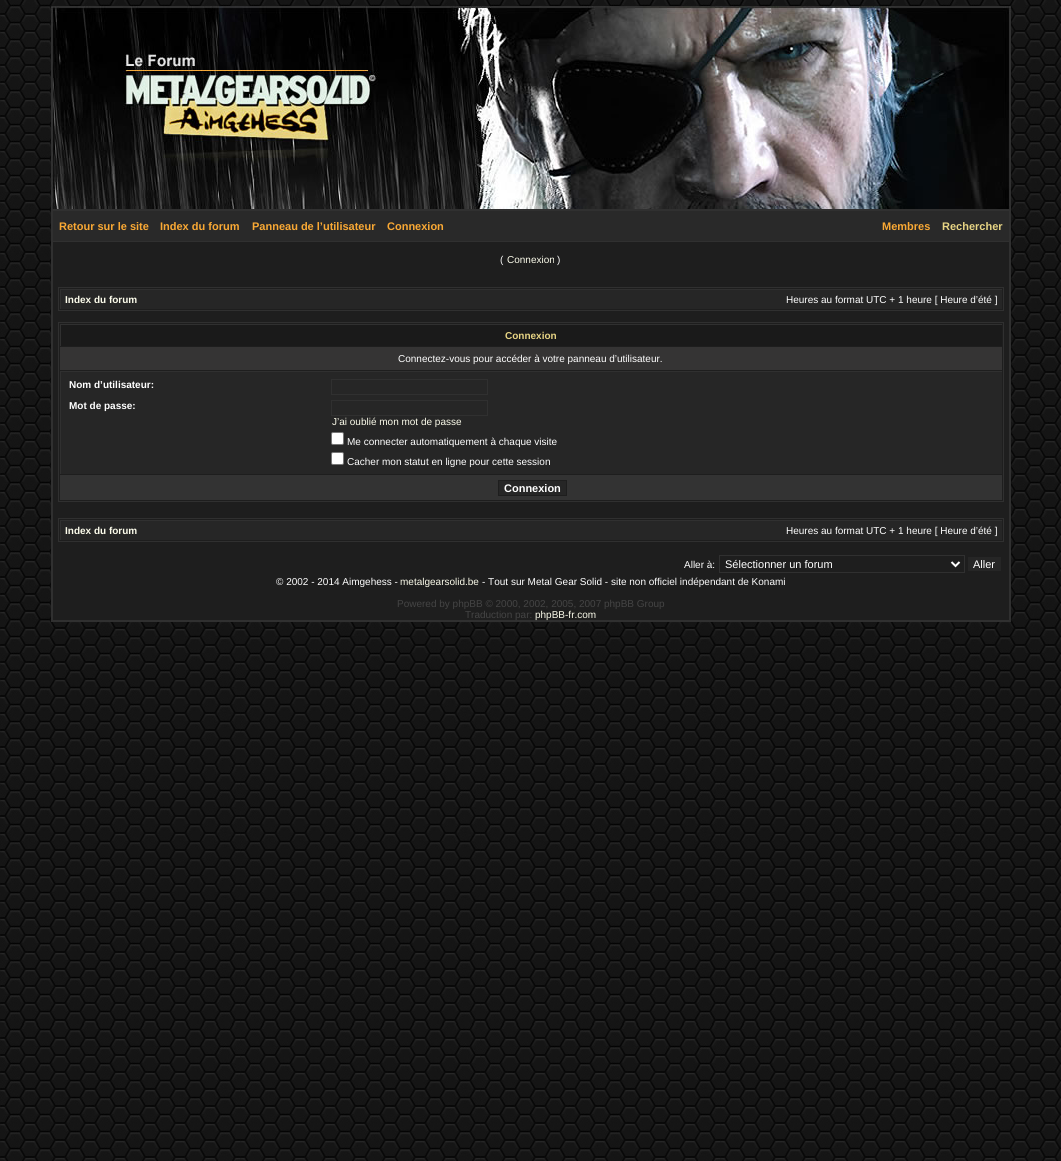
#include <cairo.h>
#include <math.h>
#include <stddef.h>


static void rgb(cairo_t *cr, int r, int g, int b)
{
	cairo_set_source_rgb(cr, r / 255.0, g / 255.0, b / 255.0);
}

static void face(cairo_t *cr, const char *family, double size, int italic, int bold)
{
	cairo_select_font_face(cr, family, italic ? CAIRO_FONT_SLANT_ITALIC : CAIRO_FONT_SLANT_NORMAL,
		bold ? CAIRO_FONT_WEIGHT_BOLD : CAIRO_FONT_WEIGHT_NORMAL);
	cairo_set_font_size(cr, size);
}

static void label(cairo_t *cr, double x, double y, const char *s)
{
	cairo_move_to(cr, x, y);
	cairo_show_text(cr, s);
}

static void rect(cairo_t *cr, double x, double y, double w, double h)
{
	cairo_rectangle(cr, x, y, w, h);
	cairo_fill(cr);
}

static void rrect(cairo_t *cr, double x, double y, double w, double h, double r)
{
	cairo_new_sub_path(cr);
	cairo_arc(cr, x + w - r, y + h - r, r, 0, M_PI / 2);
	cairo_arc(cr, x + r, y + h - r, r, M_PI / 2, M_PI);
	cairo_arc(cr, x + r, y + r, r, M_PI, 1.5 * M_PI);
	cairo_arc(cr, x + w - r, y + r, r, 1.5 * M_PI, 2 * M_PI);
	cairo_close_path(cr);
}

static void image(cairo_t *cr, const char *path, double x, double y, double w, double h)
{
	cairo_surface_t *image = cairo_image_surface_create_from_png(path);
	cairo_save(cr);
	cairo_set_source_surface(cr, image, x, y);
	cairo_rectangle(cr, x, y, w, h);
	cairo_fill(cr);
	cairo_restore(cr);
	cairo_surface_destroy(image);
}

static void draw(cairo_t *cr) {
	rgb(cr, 255, 255, 255);
	cairo_paint(cr);
	image(cr, "image0.png", 0, 0, 1061, 1161);
	image(cr, "image1.png", 51, 6, 960, 203);
	rgb(cr, 48, 48, 48);
	rect(cr, 51, 209, 960, 1);
	rect(cr, 1009, 209, 2, 413);
	rect(cr, 51, 620, 960, 2);
	rect(cr, 51, 209, 2, 413);
	rgb(cr, 30, 30, 30);
	rect(cr, 53, 242, 956, 378);
	rgb(cr, 41, 41, 41);
	rect(cr, 53, 211, 956, 30);
	rgb(cr, 48, 48, 48);
	rect(cr, 53, 210, 956, 1);
	rect(cr, 53, 241, 956, 1);
	face(cr, "Liberation Sans", 11, 0, 1);
	rgb(cr, 250, 169, 52);
	label(cr, 59, 230, "Retour sur le site");
	label(cr, 160, 230, "Index du forum");
	label(cr, 252, 230, "Panneau de l’utilisateur");
	label(cr, 387, 230, "Connexion");
	label(cr, 882, 230, "Membres");
	rgb(cr, 232, 213, 132);
	label(cr, 942, 230, "Rechercher");
	face(cr, "Liberation Sans", 10, 0, 0);
	rgb(cr, 255, 255, 255);
	label(cr, 500, 263, "(");
	rgb(cr, 252, 252, 235);
	label(cr, 507, 263, "Connexion");
	rgb(cr, 255, 255, 255);
	label(cr, 557, 263, ")");
	cairo_rectangle(cr, 58.5, 287.5, 945, 23);
	rgb(cr, 48, 48, 48);
	cairo_set_line_width(cr, 1);
	cairo_stroke(cr);
	rgb(cr, 38, 38, 38);
	rect(cr, 61, 290, 941, 19);
	rgb(cr, 48, 48, 48);
	rect(cr, 60, 289, 942, 1);
	rect(cr, 60, 289, 1, 20);
	face(cr, "Liberation Sans", 10, 0, 1);
	rgb(cr, 252, 252, 235);
	label(cr, 65, 303, "Index du forum");
	face(cr, "Liberation Sans", 10, 0, 0);
	rgb(cr, 255, 255, 255);
	label(cr, 786, 303, "Heures au format UTC + 1 heure [ Heure d’été ]");
	cairo_rectangle(cr, 58.5, 322.5, 945, 179);
	rgb(cr, 48, 48, 48);
	cairo_stroke(cr);
	rgb(cr, 26, 26, 26);
	rect(cr, 61, 325, 941, 21);
	rgb(cr, 48, 48, 48);
	rect(cr, 60, 324, 942, 1);
	rect(cr, 60, 324, 1, 22);
	face(cr, "Liberation Sans", 10, 0, 1);
	rgb(cr, 232, 213, 132);
	label(cr, 505, 339, "Connexion");
	rgb(cr, 53, 52, 52);
	rect(cr, 60, 347, 942, 23);
	face(cr, "Liberation Sans", 10, 0, 0);
	rgb(cr, 255, 255, 255);
	label(cr, 398, 362, "Connectez-vous pour accéder à votre panneau d’utilisateur.");
	rgb(cr, 38, 38, 38);
	rect(cr, 61, 372, 941, 102);
	rgb(cr, 48, 48, 48);
	rect(cr, 60, 371, 942, 1);
	rect(cr, 60, 371, 1, 103);
	face(cr, "Liberation Sans", 10, 0, 1);
	rgb(cr, 255, 255, 255);
	label(cr, 69, 388, "Nom d’utilisateur:");
	cairo_rectangle(cr, 331.5, 379.5, 156, 15);
	rgb(cr, 48, 48, 48);
	cairo_stroke(cr);
	rgb(cr, 255, 255, 255);
	label(cr, 69, 409, "Mot de passe:");
	cairo_rectangle(cr, 331.5, 400.5, 156, 15);
	rgb(cr, 48, 48, 48);
	cairo_stroke(cr);
	face(cr, "Liberation Sans", 10, 0, 0);
	rgb(cr, 252, 252, 235);
	label(cr, 332, 425, "J’ai oublié mon mot de passe");
	rgb(cr, 255, 255, 255);
	rrect(cr, 331.5, 432.5, 12, 12, 1.5);
	cairo_fill_preserve(cr);
	rgb(cr, 118, 118, 118);
	cairo_stroke(cr);
	rgb(cr, 255, 255, 255);
	label(cr, 347, 445, "Me connecter automatiquement à chaque visite");
	rrect(cr, 331.5, 452.5, 12, 12, 1.5);
	cairo_fill_preserve(cr);
	rgb(cr, 118, 118, 118);
	cairo_stroke(cr);
	rgb(cr, 255, 255, 255);
	label(cr, 347, 465, "Cacher mon statut en ligne pour cette session");
	rgb(cr, 51, 51, 51);
	rect(cr, 60, 475, 942, 25);
	rgb(cr, 38, 38, 38);
	cairo_rectangle(cr, 498.5, 480.5, 68, 15);
	cairo_fill_preserve(cr);
	rgb(cr, 30, 30, 30);
	cairo_stroke(cr);
	face(cr, "Liberation Sans", 11, 0, 1);
	rgb(cr, 255, 255, 255);
	label(cr, 504, 492, "Connexion");
	cairo_rectangle(cr, 58.5, 518.5, 945, 23);
	rgb(cr, 48, 48, 48);
	cairo_stroke(cr);
	rgb(cr, 38, 38, 38);
	rect(cr, 61, 521, 941, 19);
	rgb(cr, 48, 48, 48);
	rect(cr, 60, 520, 942, 1);
	rect(cr, 60, 520, 1, 20);
	face(cr, "Liberation Sans", 10, 0, 1);
	rgb(cr, 252, 252, 235);
	label(cr, 65, 534, "Index du forum");
	face(cr, "Liberation Sans", 10, 0, 0);
	rgb(cr, 255, 255, 255);
	label(cr, 786, 534, "Heures au format UTC + 1 heure [ Heure d’été ]");
	label(cr, 684, 568, "Aller à:");
	cairo_rectangle(cr, 719.5, 555.5, 245, 17);
	rgb(cr, 48, 48, 48);
	cairo_stroke(cr);
	cairo_new_path(cr);
	cairo_move_to(cr, 951.5, 562);
	cairo_line_to(cr, 955.5, 566);
	cairo_line_to(cr, 959.5, 562);
	rgb(cr, 255, 255, 255);
	cairo_set_line_width(cr, 2);
	cairo_stroke(cr);
	face(cr, "Liberation Sans", 11, 0, 0);
	label(cr, 725, 568, "Sélectionner un forum");
	rgb(cr, 38, 38, 38);
	rect(cr, 968, 557, 33, 14);
	rgb(cr, 255, 255, 255);
	label(cr, 973, 568, "Aller");
	face(cr, "Liberation Sans", 10, 0, 0);
	label(cr, 276, 585, "© 2002 - 2014 Aimgehess -");
	rgb(cr, 252, 252, 235);
	label(cr, 400, 585, "metalgearsolid.be");
	rgb(cr, 255, 255, 255);
	label(cr, 482, 585, "- Tout sur Metal Gear Solid - site non officiel indépendant de Konami");
	rgb(cr, 68, 68, 68);
	label(cr, 397, 607, "Powered by phpBB © 2000, 2002, 2005, 2007 phpBB Group");
	label(cr, 465, 618, "Traduction par:");
	rgb(cr, 252, 252, 235);
	label(cr, 535, 618, "phpBB-fr.com");
}

int main(void) {
	cairo_surface_t *surface = cairo_image_surface_create(CAIRO_FORMAT_RGB24, 1061, 1161);
	cairo_t *cr = cairo_create(surface);
	cairo_font_options_t *options = cairo_font_options_create();
	cairo_font_options_set_hint_metrics(options, CAIRO_HINT_METRICS_OFF);
	cairo_font_options_set_hint_style(options, CAIRO_HINT_STYLE_NONE);
	cairo_set_font_options(cr, options);
	cairo_set_miter_limit(cr, 4);
	draw(cr);
	cairo_surface_write_to_png(surface, "render.png");
	cairo_font_options_destroy(options);
	cairo_destroy(cr);
	cairo_surface_destroy(surface);
	return 0;
}
